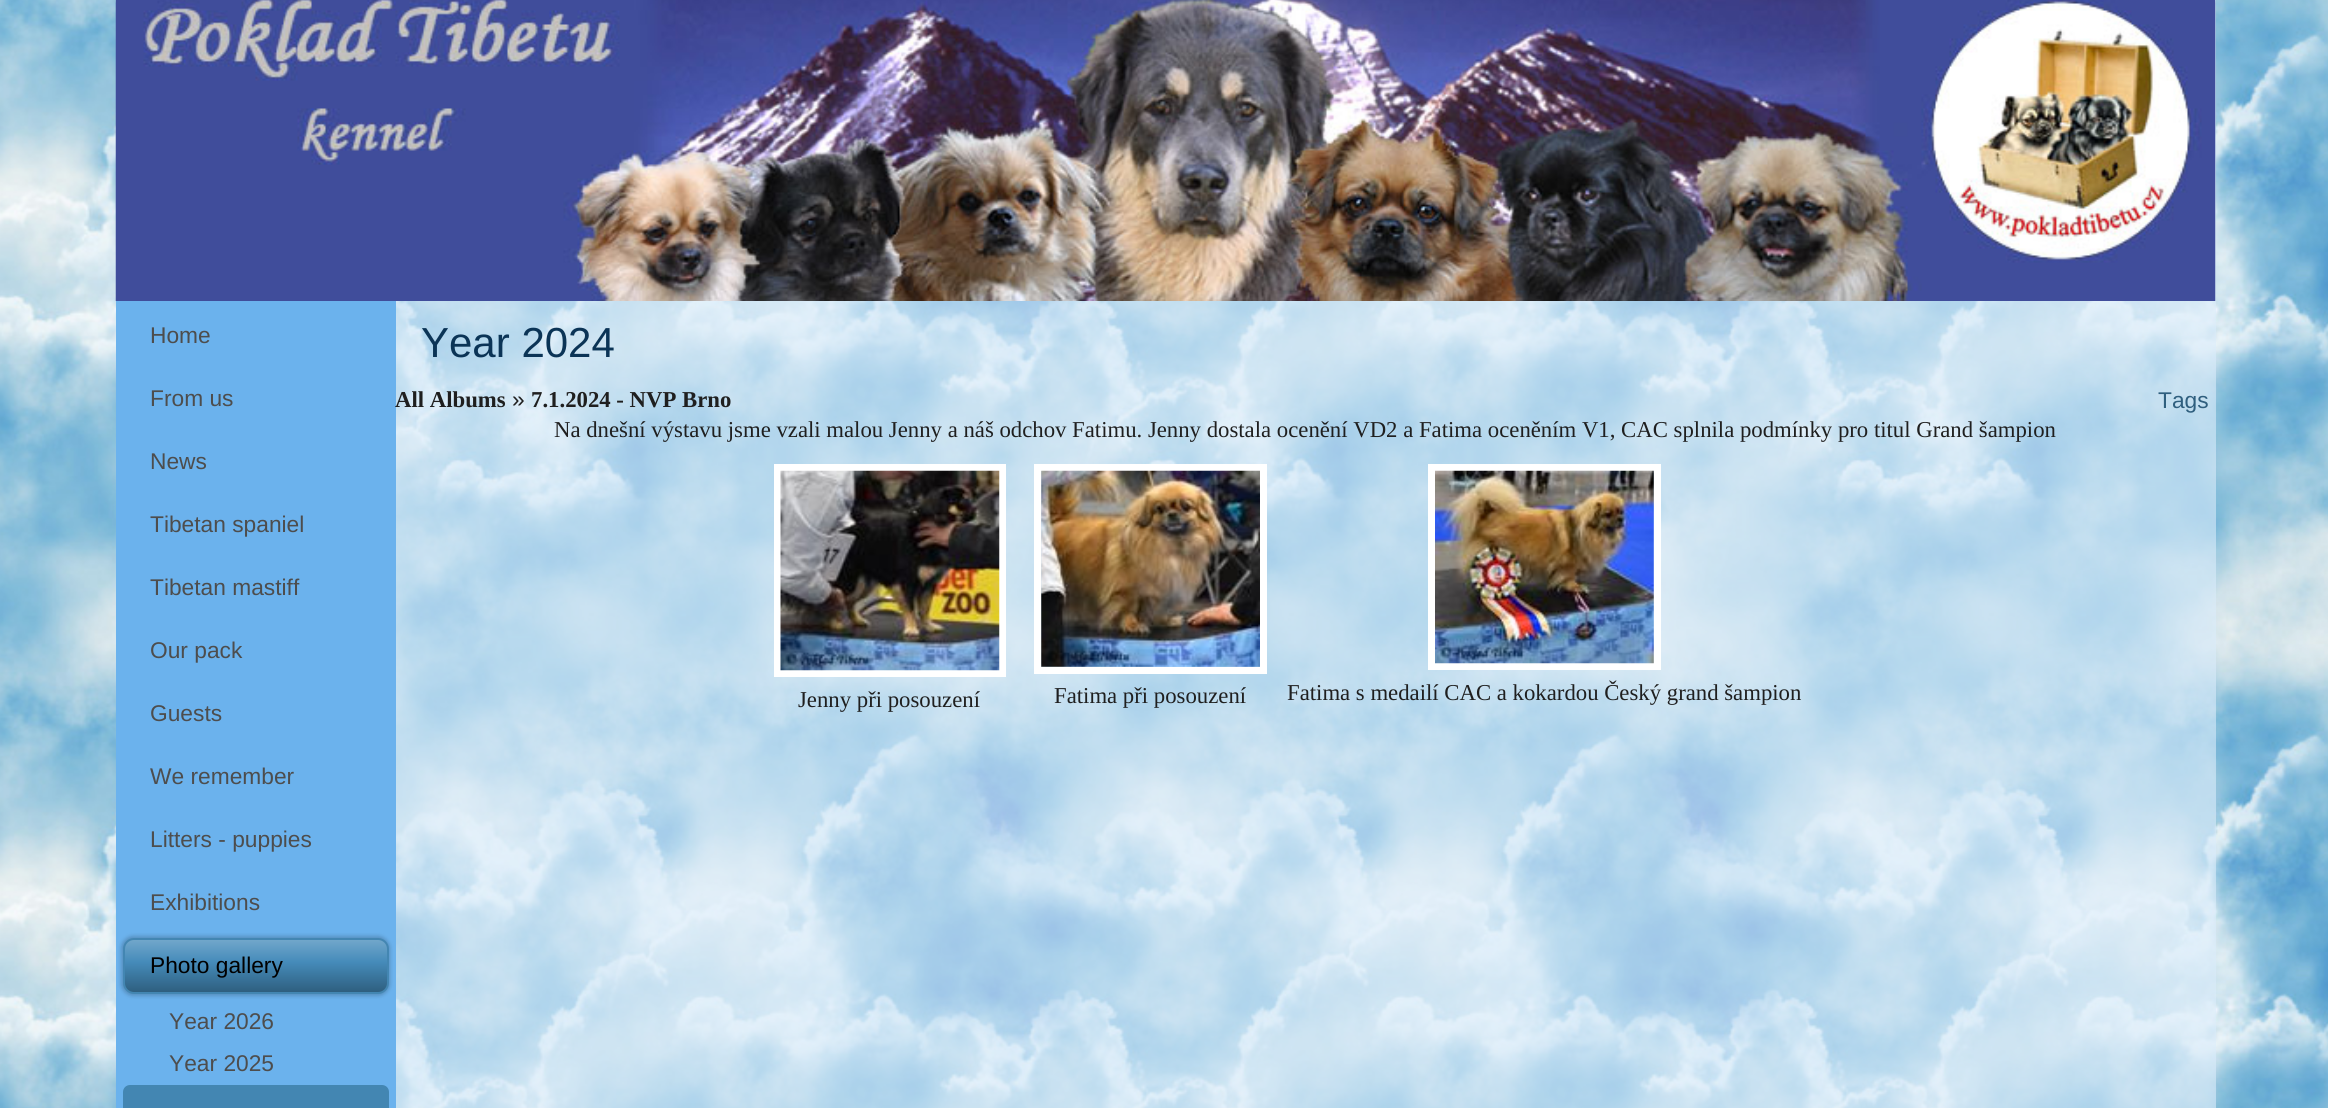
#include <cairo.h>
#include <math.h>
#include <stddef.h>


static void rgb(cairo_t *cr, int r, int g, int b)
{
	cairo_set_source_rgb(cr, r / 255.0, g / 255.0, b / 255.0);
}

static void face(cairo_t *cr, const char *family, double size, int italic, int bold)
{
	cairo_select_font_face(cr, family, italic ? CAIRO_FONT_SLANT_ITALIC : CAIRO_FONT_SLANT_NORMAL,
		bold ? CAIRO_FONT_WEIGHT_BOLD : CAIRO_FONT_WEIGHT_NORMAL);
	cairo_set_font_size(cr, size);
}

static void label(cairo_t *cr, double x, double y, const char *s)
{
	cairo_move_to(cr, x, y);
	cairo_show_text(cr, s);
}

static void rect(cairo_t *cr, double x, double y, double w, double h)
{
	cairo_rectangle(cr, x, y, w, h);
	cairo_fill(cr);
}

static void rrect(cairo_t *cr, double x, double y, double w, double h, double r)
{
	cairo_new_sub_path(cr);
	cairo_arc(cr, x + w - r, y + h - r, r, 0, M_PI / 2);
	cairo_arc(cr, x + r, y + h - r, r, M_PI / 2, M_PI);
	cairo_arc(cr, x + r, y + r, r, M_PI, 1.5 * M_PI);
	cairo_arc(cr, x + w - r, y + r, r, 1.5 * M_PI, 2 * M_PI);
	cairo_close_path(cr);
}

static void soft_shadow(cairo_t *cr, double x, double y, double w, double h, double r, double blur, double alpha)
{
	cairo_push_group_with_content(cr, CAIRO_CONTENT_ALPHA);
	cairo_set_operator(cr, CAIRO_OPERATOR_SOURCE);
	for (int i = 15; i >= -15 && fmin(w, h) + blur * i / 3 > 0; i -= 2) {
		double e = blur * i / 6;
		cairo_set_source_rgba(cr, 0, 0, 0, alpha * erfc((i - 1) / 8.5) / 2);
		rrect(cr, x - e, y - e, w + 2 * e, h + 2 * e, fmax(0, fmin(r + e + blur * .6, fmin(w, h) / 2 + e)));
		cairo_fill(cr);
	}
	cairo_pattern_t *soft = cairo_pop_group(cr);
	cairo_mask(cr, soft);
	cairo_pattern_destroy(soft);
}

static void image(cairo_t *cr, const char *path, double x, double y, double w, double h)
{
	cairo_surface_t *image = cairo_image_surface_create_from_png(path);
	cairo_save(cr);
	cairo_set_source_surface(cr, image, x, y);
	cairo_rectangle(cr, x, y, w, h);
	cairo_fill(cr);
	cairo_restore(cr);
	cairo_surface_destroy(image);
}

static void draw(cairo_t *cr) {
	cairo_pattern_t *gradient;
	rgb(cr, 255, 255, 255);
	cairo_paint(cr);
	image(cr, "image0.png", 0, 0, 2328, 1108);
	image(cr, "image1.png", 115, 0, 2101, 301);
	rgb(cr, 107, 178, 237);
	rect(cr, 116, 301, 280, 807);
	face(cr, "Liberation Sans", 22.75, 0, 0);
	rgb(cr, 77, 77, 77);
	label(cr, 150, 343, "Home");
	label(cr, 150, 406, "From us");
	label(cr, 150, 469, "News");
	label(cr, 150, 532, "Tibetan spaniel");
	label(cr, 150, 595, "Tibetan mastiff");
	label(cr, 150, 658, "Our pack");
	label(cr, 150, 721, "Guests");
	label(cr, 150, 784, "We remember");
	label(cr, 150, 847, "Litters - puppies");
	label(cr, 150, 910, "Exhibitions");
	rgb(cr, 0, 0, 0);
	soft_shadow(cr, 121, 936, 269, 60, 12, 2, 0.2);
	gradient = cairo_pattern_create_linear(256, 938, 256, 994);
	cairo_pattern_add_color_stop_rgba(gradient, 0, 0.459, 0.663, 0.8, 1);
	cairo_pattern_add_color_stop_rgba(gradient, 0.43, 0.271, 0.545, 0.729, 1);
	cairo_pattern_add_color_stop_rgba(gradient, 1, 0.176, 0.361, 0.482, 1);
	cairo_set_source(cr, gradient);
	cairo_pattern_destroy(gradient);
	rrect(cr, 124, 939, 264, 54, 10);
	cairo_fill_preserve(cr);
	rgb(cr, 67, 134, 178);
	cairo_stroke(cr);
	rgb(cr, 0, 0, 0);
	label(cr, 150, 973, "Photo gallery");
	rgb(cr, 77, 77, 77);
	label(cr, 169, 1029, "Year 2026");
	label(cr, 169, 1071, "Year 2025");
	rgb(cr, 67, 134, 178);
	rrect(cr, 123, 1085, 266, 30, 7);
	cairo_fill(cr);
	face(cr, "Liberation Sans", 42, 0, 0);
	rgb(cr, 11, 52, 86);
	label(cr, 421, 357, "Year 2024");
	face(cr, "Liberation Serif", 22.75, 0, 1);
	rgb(cr, 31, 31, 31);
	label(cr, 395, 407, "All Albums");
	face(cr, "Liberation Sans", 22.75, 0, 0);
	label(cr, 512, 407, "»");
	face(cr, "Liberation Serif", 22.75, 0, 1);
	label(cr, 531, 407, "7.1.2024 - NVP Brno");
	face(cr, "Liberation Sans", 22.75, 0, 0);
	rgb(cr, 47, 95, 126);
	label(cr, 2158, 408, "Tags");
	face(cr, "Liberation Serif", 22.75, 0, 0);
	rgb(cr, 31, 31, 31);
	label(cr, 554, 437, "Na dnešní výstavu jsme vzali malou Jenny a náš odchov Fatimu. Jenny dostala ocenění VD2 a Fatima oceněním V1, CAC splnila podmínky pro titul Grand šampion");
	cairo_rectangle(cr, 777.5, 467.5, 225, 206);
	rgb(cr, 255, 255, 255);
	cairo_set_line_width(cr, 7);
	cairo_stroke(cr);
	image(cr, "image2.png", 780, 470, 220, 201);
	rgb(cr, 31, 31, 31);
	label(cr, 798, 707, "Jenny při posouzení");
	cairo_rectangle(cr, 1037.5, 467.5, 226, 203);
	rgb(cr, 255, 255, 255);
	cairo_stroke(cr);
	image(cr, "image3.png", 1041, 470, 219, 197);
	rgb(cr, 31, 31, 31);
	label(cr, 1054, 703, "Fatima při posouzení");
	cairo_rectangle(cr, 1431.5, 467.5, 226, 199);
	rgb(cr, 255, 255, 255);
	cairo_stroke(cr);
	image(cr, "image4.png", 1435, 470, 219, 194);
	rgb(cr, 31, 31, 31);
	label(cr, 1287, 700, "Fatima s medailí CAC a kokardou Český grand šampion");
}

int main(void) {
	cairo_surface_t *surface = cairo_image_surface_create(CAIRO_FORMAT_RGB24, 2328, 1108);
	cairo_t *cr = cairo_create(surface);
	cairo_font_options_t *options = cairo_font_options_create();
	cairo_font_options_set_hint_metrics(options, CAIRO_HINT_METRICS_OFF);
	cairo_font_options_set_hint_style(options, CAIRO_HINT_STYLE_NONE);
	cairo_set_font_options(cr, options);
	cairo_set_miter_limit(cr, 4);
	draw(cr);
	cairo_surface_write_to_png(surface, "render.png");
	cairo_font_options_destroy(options);
	cairo_destroy(cr);
	cairo_surface_destroy(surface);
	return 0;
}
